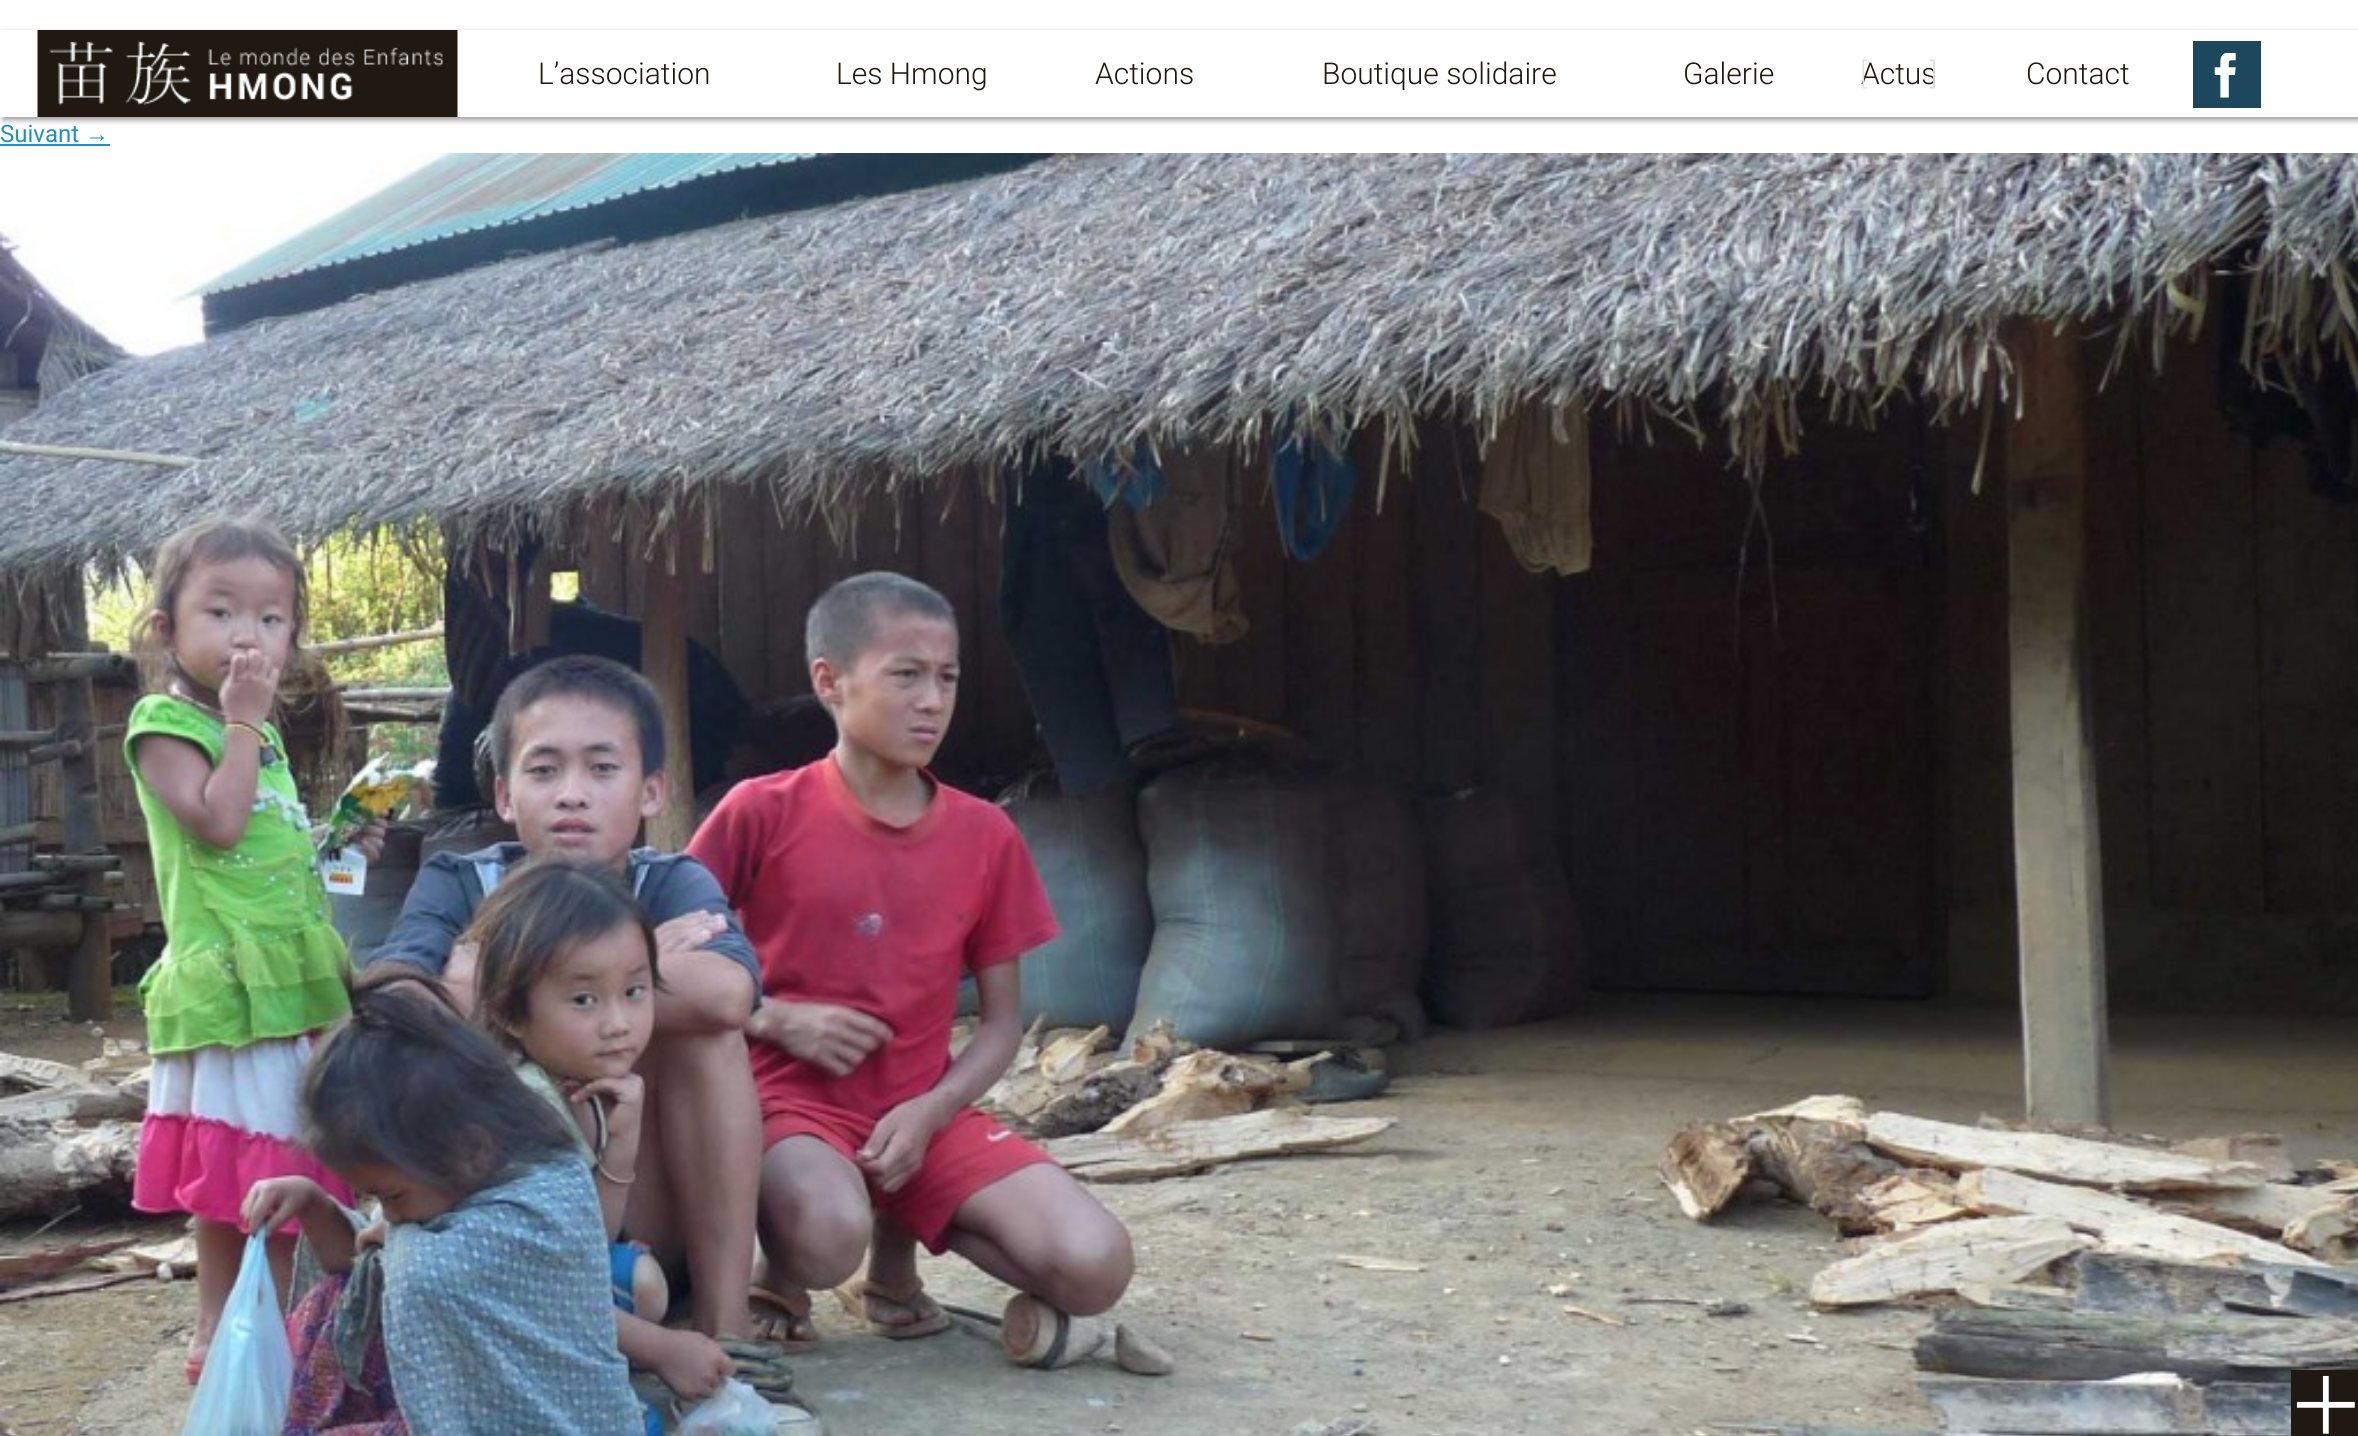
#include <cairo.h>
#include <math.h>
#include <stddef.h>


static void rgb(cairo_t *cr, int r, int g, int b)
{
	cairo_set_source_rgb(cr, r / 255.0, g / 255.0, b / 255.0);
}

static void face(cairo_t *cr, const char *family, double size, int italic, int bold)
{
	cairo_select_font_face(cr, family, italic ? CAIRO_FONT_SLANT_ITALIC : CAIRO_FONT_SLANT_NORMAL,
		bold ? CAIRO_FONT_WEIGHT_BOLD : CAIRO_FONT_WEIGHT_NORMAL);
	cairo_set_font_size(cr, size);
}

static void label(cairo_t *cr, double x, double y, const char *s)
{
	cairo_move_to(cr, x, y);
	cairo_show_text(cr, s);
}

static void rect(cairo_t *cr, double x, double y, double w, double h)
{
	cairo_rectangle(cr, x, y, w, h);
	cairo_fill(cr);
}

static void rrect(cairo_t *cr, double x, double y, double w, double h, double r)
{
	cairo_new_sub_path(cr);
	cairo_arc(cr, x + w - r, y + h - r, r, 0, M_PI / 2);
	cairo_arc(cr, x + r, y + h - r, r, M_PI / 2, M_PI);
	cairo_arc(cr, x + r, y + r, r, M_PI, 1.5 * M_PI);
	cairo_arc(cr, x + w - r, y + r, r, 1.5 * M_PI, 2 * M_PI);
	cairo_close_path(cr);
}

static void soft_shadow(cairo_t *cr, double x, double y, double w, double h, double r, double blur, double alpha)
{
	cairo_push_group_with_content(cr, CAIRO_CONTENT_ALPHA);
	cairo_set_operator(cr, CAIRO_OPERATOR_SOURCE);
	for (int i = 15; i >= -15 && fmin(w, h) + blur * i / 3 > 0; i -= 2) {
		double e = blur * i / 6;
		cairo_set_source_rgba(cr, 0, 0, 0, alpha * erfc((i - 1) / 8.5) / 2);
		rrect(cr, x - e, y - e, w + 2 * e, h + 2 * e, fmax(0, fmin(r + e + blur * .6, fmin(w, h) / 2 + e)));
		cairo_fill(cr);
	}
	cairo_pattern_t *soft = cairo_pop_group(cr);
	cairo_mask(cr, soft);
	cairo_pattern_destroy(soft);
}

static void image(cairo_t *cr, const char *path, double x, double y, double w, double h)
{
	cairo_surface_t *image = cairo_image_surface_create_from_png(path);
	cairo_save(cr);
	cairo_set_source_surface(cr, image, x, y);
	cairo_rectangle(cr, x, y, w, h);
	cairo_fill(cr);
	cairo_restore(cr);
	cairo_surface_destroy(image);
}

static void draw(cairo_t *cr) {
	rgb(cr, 255, 255, 255);
	cairo_paint(cr);
	rgb(cr, 51, 51, 51);
	soft_shadow(cr, 3, 33, 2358, 87, 0, 3, 0.5);
	rgb(cr, 255, 255, 255);
	rect(cr, 0, 30, 2358, 87);
	image(cr, "image0.png", 37, 30, 421, 87);
	face(cr, "Roboto Light", 30, 0, 0);
	rgb(cr, 32, 25, 17);
	label(cr, 538, 84, "L’association");
	label(cr, 836, 84, "Les Hmong");
	label(cr, 1095, 84, "Actions");
	label(cr, 1322, 84, "Boutique solidaire");
	label(cr, 1683, 84, "Galerie");
	label(cr, 1861, 84, "Actus");
	rgb(cr, 227, 227, 226);
	label(cr, 1860, 84, "[");
	rgb(cr, 220, 219, 217);
	label(cr, 1930, 84, "]");
	rgb(cr, 32, 25, 17);
	label(cr, 2026, 84, "Contact");
	rgb(cr, 28, 71, 92);
	rect(cr, 2193, 41, 68, 67);
	image(cr, "image1.png", 2214, 53, 22, 45);
	face(cr, "Roboto", 24, 0, 0);
	rgb(cr, 32, 144, 202);
	label(cr, 0, 142, "Suivant");
	face(cr, "Liberation Sans", 24, 0, 0);
	label(cr, 85, 142, "→");
	rect(cr, 0, 144, 110, 2);
	image(cr, "image2.png", 0, 153, 2358, 1283);
	rgb(cr, 32, 25, 17);
	rect(cr, 2291, 1370, 67, 66);
	image(cr, "image3.png", 2296, 1375, 59, 59);
}

int main(void) {
	cairo_surface_t *surface = cairo_image_surface_create(CAIRO_FORMAT_RGB24, 2358, 1436);
	cairo_t *cr = cairo_create(surface);
	cairo_font_options_t *options = cairo_font_options_create();
	cairo_font_options_set_hint_metrics(options, CAIRO_HINT_METRICS_OFF);
	cairo_font_options_set_hint_style(options, CAIRO_HINT_STYLE_NONE);
	cairo_set_font_options(cr, options);
	cairo_set_miter_limit(cr, 4);
	draw(cr);
	cairo_surface_write_to_png(surface, "render.png");
	cairo_font_options_destroy(options);
	cairo_destroy(cr);
	cairo_surface_destroy(surface);
	return 0;
}
